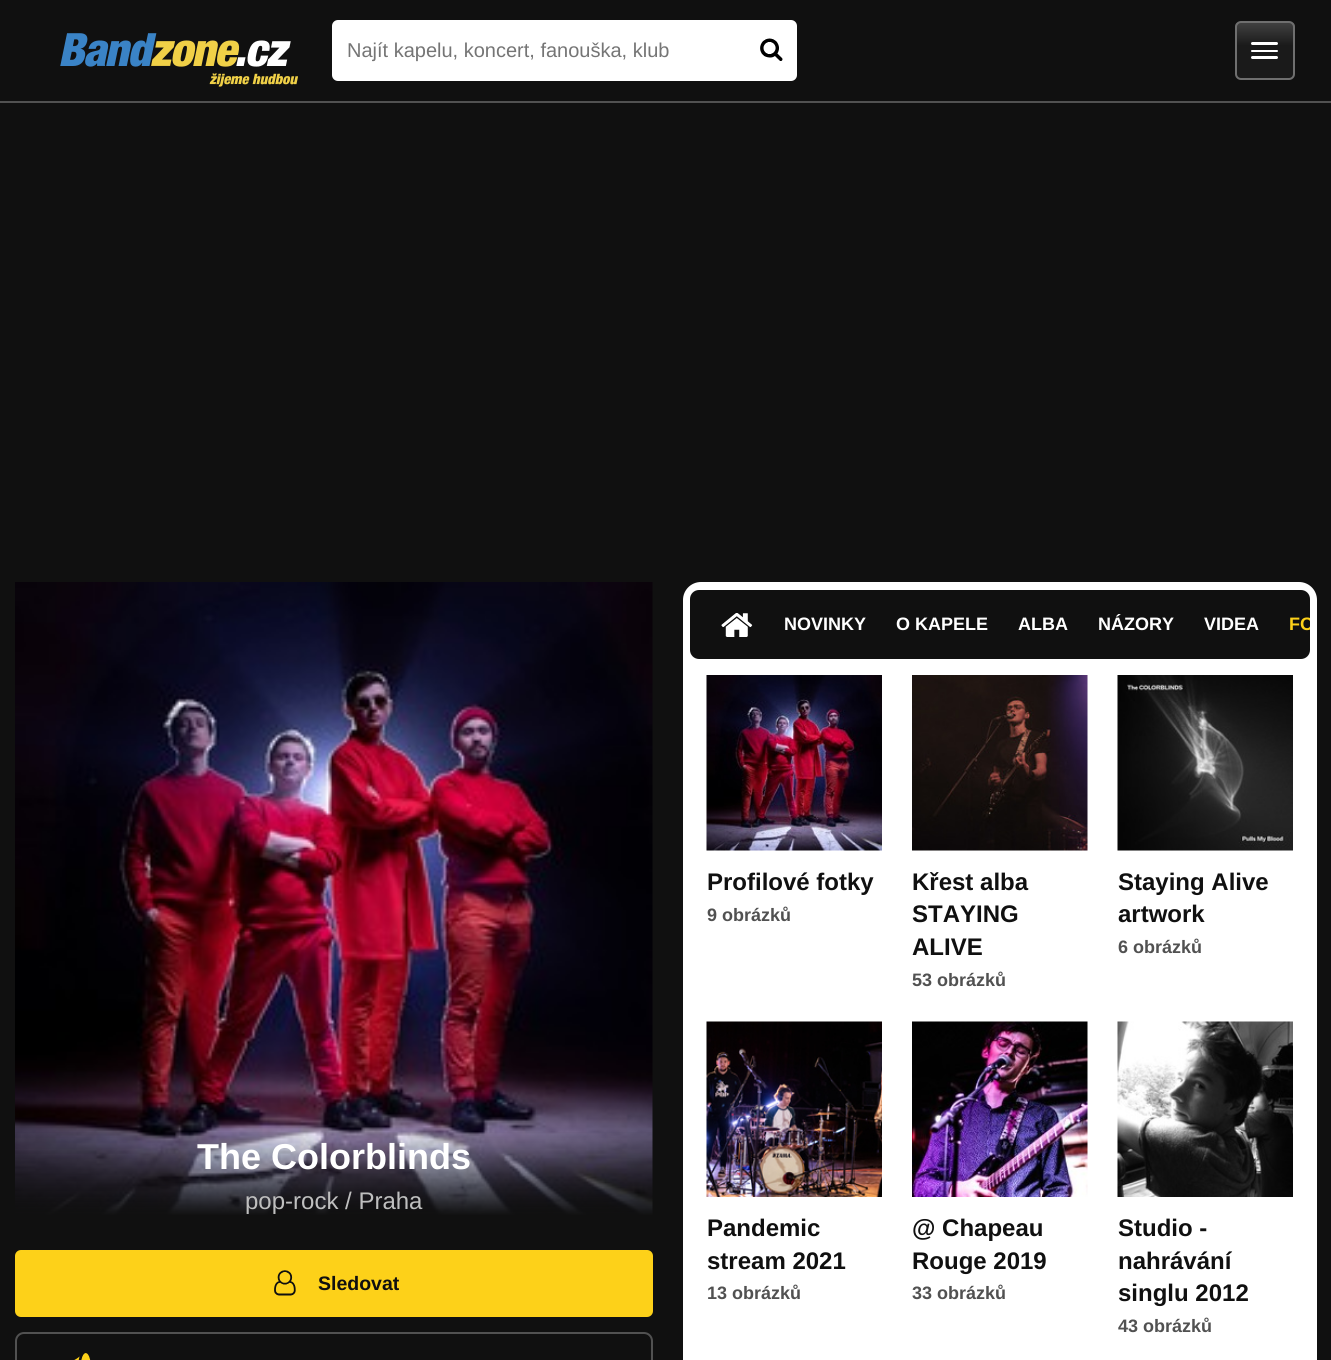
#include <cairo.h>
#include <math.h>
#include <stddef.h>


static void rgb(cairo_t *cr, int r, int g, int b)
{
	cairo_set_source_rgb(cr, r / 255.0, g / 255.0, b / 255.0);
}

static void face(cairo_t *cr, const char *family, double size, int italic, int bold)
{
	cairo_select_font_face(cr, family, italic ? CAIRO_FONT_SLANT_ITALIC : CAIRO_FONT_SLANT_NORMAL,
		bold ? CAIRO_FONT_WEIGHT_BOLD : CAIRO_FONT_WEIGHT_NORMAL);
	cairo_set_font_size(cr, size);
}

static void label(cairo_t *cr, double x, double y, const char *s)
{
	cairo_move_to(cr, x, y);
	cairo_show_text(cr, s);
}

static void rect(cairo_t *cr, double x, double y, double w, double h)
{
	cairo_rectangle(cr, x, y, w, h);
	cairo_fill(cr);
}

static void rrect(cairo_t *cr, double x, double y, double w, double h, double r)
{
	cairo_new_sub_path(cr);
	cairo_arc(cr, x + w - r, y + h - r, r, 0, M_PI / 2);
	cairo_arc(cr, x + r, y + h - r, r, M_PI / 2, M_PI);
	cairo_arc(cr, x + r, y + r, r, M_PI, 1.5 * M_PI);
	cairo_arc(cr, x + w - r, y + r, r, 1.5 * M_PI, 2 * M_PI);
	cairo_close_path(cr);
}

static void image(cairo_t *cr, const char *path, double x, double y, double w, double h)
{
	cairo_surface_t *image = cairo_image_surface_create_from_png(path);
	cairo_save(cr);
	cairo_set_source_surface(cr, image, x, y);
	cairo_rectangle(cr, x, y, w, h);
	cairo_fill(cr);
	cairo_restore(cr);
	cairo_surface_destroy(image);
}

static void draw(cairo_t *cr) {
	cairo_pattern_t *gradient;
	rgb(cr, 16, 16, 16);
	cairo_paint(cr);
	rgb(cr, 81, 81, 81);
	rect(cr, 0, 101, 1331, 2);
	image(cr, "image0.png", 60, 33, 238, 54);
	rgb(cr, 255, 255, 255);
	rrect(cr, 332, 20, 465, 61, 6);
	cairo_fill(cr);
	face(cr, "Liberation Sans", 20, 0, 0);
	rgb(cr, 117, 117, 117);
	label(cr, 347, 57, "Najít kapelu, koncert, fanouška, klub");
	image(cr, "image1.png", 760, 38, 23, 23);
	cairo_save(cr);
	rrect(cr, 1235, 21, 60, 59, 6);
	cairo_clip(cr);
	gradient = cairo_pattern_create_linear(1265, 22, 1265, 78);
	cairo_pattern_add_color_stop_rgba(gradient, 0, 0.259, 0.259, 0.259, 1);
	cairo_pattern_add_color_stop_rgba(gradient, 0.42, 0.102, 0.102, 0.102, 1);
	cairo_set_source(cr, gradient);
	cairo_pattern_destroy(gradient);
	rect(cr, 1235, 23, 60, 55);
	cairo_restore(cr);
	rrect(cr, 1236, 22, 58, 57, 5);
	rgb(cr, 111, 111, 111);
	cairo_stroke(cr);
	rgb(cr, 255, 255, 255);
	rrect(cr, 1251, 42, 27, 3, 1.5);
	cairo_fill(cr);
	rrect(cr, 1251, 50, 27, 2, 1);
	cairo_fill(cr);
	rrect(cr, 1251, 56, 27, 3, 1.5);
	cairo_fill(cr);
	image(cr, "image2.png", 15, 582, 638, 633);
	gradient = cairo_pattern_create_linear(334, 1130, 334, 1220);
	cairo_pattern_add_color_stop_rgba(gradient, 0, 0.063, 0.063, 0.063, 0);
	cairo_pattern_add_color_stop_rgba(gradient, 0.95, 0.063, 0.063, 0.063, 1);
	cairo_set_source(cr, gradient);
	cairo_pattern_destroy(gradient);
	rect(cr, 15, 1132, 638, 83);
	face(cr, "Liberation Sans", 36, 0, 1);
	rgb(cr, 255, 255, 255);
	label(cr, 197, 1169, "The Colorblinds");
	face(cr, "Liberation Sans", 24, 0, 0);
	rgb(cr, 191, 191, 191);
	label(cr, 245, 1209, "pop-rock / Praha");
	rgb(cr, 253, 209, 25);
	rrect(cr, 16, 1251, 636, 65, 5);
	cairo_fill_preserve(cr);
	cairo_stroke(cr);
	image(cr, "image3.png", 274, 1270, 22, 26);
	face(cr, "Liberation Sans", 19.5, 0, 1);
	rgb(cr, 16, 16, 16);
	label(cr, 318, 1290, "Sledovat");
	rrect(cr, 16, 1333, 636, 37, 8);
	rgb(cr, 81, 81, 81);
	cairo_stroke(cr);
	image(cr, "image4.png", 74, 1353, 17, 7);
	rgb(cr, 255, 255, 255);
	rrect(cr, 683, 582, 634, 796, 18);
	cairo_fill(cr);
	rgb(cr, 16, 16, 16);
	rrect(cr, 690, 590, 620, 69, 9);
	cairo_fill(cr);
	image(cr, "image5.png", 721, 613, 32, 24);
	face(cr, "Liberation Sans", 18, 0, 1);
	rgb(cr, 255, 255, 255);
	label(cr, 784, 630, "NOVINKY");
	label(cr, 896, 630, "O KAPELE");
	label(cr, 1018, 630, "ALBA");
	label(cr, 1098, 630, "NÁZORY");
	label(cr, 1204, 630, "VIDEA");
	cairo_save(cr);
	rrect(cr, 690, 590, 620, 69, 9);
	cairo_clip(cr);
	rgb(cr, 253, 209, 25);
	label(cr, 1289, 630, "FO");
	cairo_restore(cr);
	image(cr, "image6.png", 706, 675, 176, 176);
	face(cr, "Liberation Sans", 24, 0, 1);
	rgb(cr, 16, 16, 16);
	label(cr, 707, 890, "Profilové fotky");
	face(cr, "Liberation Sans", 18, 0, 1);
	rgb(cr, 81, 81, 81);
	label(cr, 707, 921, "9 obrázků");
	image(cr, "image7.png", 912, 675, 176, 176);
	face(cr, "Liberation Sans", 24, 0, 1);
	rgb(cr, 16, 16, 16);
	label(cr, 912, 890, "Křest alba");
	label(cr, 912, 922, "STAYING");
	label(cr, 912, 955, "ALIVE");
	face(cr, "Liberation Sans", 18, 0, 1);
	rgb(cr, 81, 81, 81);
	label(cr, 912, 986, "53 obrázků");
	image(cr, "image8.png", 1117, 675, 176, 176);
	face(cr, "Liberation Sans", 24, 0, 1);
	rgb(cr, 16, 16, 16);
	label(cr, 1118, 890, "Staying Alive");
	label(cr, 1118, 922, "artwork");
	face(cr, "Liberation Sans", 18, 0, 1);
	rgb(cr, 81, 81, 81);
	label(cr, 1118, 953, "6 obrázků");
	image(cr, "image9.png", 706, 1021, 176, 176);
	face(cr, "Liberation Sans", 24, 0, 1);
	rgb(cr, 16, 16, 16);
	label(cr, 707, 1236, "Pandemic");
	label(cr, 707, 1269, "stream 2021");
	face(cr, "Liberation Sans", 18, 0, 1);
	rgb(cr, 81, 81, 81);
	label(cr, 707, 1299, "13 obrázků");
	image(cr, "image10.png", 912, 1021, 176, 176);
	face(cr, "Liberation Sans", 24, 0, 1);
	rgb(cr, 16, 16, 16);
	label(cr, 912, 1236, "@ Chapeau");
	label(cr, 912, 1269, "Rouge 2019");
	face(cr, "Liberation Sans", 18, 0, 1);
	rgb(cr, 81, 81, 81);
	label(cr, 912, 1299, "33 obrázků");
	image(cr, "image11.png", 1117, 1021, 176, 176);
	face(cr, "Liberation Sans", 24, 0, 1);
	rgb(cr, 16, 16, 16);
	label(cr, 1118, 1236, "Studio -");
	label(cr, 1118, 1269, "nahrávání");
	label(cr, 1118, 1301, "singlu 2012");
	face(cr, "Liberation Sans", 18, 0, 1);
	rgb(cr, 81, 81, 81);
	label(cr, 1118, 1332, "43 obrázků");
}

int main(void) {
	cairo_surface_t *surface = cairo_image_surface_create(CAIRO_FORMAT_RGB24, 1331, 1360);
	cairo_t *cr = cairo_create(surface);
	cairo_font_options_t *options = cairo_font_options_create();
	cairo_font_options_set_hint_metrics(options, CAIRO_HINT_METRICS_OFF);
	cairo_font_options_set_hint_style(options, CAIRO_HINT_STYLE_NONE);
	cairo_set_font_options(cr, options);
	cairo_set_miter_limit(cr, 4);
	draw(cr);
	cairo_surface_write_to_png(surface, "render.png");
	cairo_font_options_destroy(options);
	cairo_destroy(cr);
	cairo_surface_destroy(surface);
	return 0;
}
